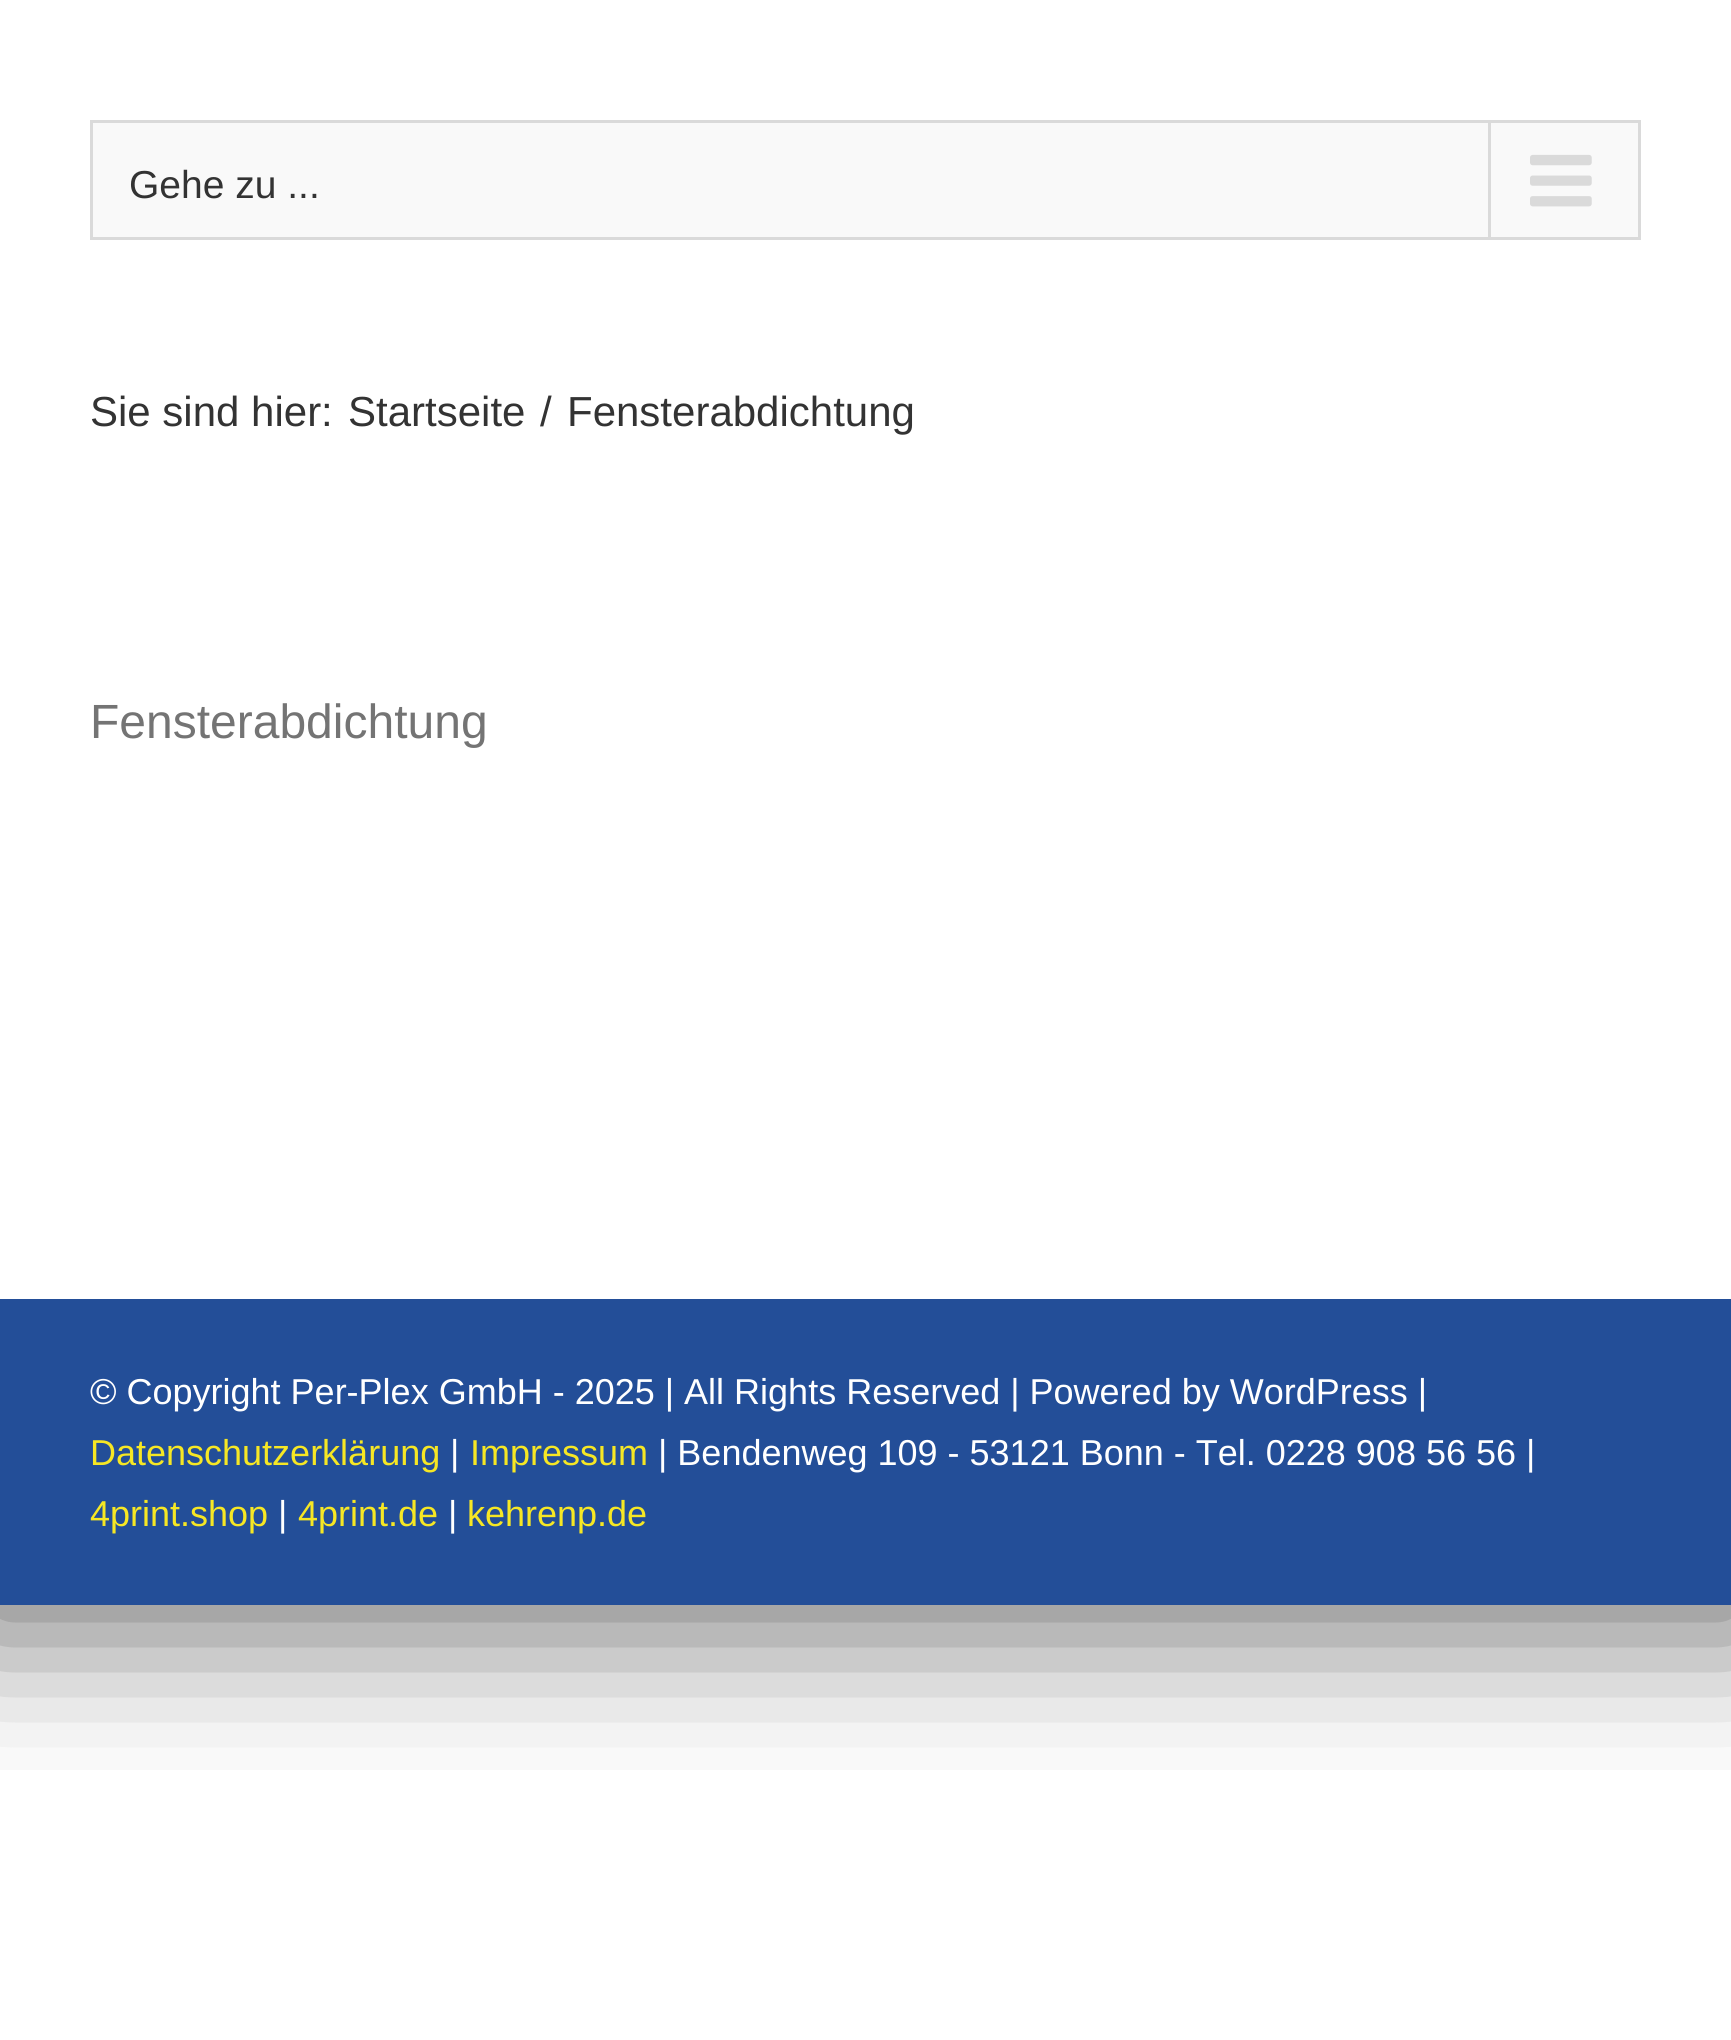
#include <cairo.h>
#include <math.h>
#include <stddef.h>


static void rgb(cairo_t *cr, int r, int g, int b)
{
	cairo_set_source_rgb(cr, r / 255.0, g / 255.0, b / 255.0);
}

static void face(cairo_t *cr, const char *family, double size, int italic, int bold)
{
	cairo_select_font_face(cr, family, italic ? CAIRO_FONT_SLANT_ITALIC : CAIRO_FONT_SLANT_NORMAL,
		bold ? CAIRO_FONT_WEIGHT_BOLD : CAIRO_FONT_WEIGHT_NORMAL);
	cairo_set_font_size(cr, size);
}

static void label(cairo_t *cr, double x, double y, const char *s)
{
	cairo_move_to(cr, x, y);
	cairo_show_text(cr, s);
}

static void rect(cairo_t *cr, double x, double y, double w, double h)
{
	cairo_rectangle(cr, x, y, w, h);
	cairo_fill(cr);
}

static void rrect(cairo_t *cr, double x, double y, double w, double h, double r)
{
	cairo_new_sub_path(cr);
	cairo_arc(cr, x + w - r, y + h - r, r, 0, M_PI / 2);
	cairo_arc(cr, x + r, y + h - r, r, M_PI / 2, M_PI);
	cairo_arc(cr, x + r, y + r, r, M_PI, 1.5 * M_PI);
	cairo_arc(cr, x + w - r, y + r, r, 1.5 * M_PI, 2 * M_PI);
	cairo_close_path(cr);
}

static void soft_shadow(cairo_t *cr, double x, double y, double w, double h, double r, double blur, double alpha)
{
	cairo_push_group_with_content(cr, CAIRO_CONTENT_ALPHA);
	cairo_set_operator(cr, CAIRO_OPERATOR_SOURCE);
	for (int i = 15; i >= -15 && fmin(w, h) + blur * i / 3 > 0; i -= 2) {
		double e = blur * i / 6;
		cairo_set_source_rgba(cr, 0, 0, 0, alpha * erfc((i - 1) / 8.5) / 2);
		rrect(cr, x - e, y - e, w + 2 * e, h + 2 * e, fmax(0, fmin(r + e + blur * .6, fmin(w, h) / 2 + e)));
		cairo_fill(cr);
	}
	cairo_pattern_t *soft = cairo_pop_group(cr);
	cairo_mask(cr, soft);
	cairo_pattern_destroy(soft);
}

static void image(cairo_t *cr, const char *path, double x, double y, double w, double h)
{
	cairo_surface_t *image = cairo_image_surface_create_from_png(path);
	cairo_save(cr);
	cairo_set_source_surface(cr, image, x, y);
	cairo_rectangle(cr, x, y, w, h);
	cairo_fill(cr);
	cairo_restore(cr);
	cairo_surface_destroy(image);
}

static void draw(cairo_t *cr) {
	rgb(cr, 255, 255, 255);
	cairo_paint(cr);
	cairo_save(cr);
	cairo_rectangle(cr, 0, 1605, 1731, 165);
	cairo_clip(cr);
	rgb(cr, 0, 0, 0);
	soft_shadow(cr, -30, -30, 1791, 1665, 0, 75, 0.55);
	cairo_restore(cr);
	rgb(cr, 249, 249, 249);
	cairo_rectangle(cr, 91.5, 121.5, 1548, 117);
	cairo_fill_preserve(cr);
	rgb(cr, 218, 218, 218);
	cairo_set_line_width(cr, 3);
	cairo_stroke(cr);
	face(cr, "Liberation Sans", 39, 0, 0);
	rgb(cr, 51, 51, 51);
	label(cr, 129, 198, "Gehe zu ...");
	rgb(cr, 218, 218, 218);
	rect(cr, 1488, 123, 3, 114);
	image(cr, "image0.png", 1530, 154, 62, 53);
	face(cr, "Liberation Sans", 42, 0, 0);
	rgb(cr, 51, 51, 51);
	label(cr, 90, 426, "Sie sind hier:");
	label(cr, 348, 426, "Startseite");
	label(cr, 540, 426, "/");
	label(cr, 567, 426, "Fensterabdichtung");
	face(cr, "Liberation Sans", 48, 0, 0);
	rgb(cr, 116, 116, 116);
	label(cr, 90, 738, "Fensterabdichtung");
	rgb(cr, 35, 78, 152);
	rect(cr, 0, 1299, 1731, 306);
	face(cr, "Liberation Sans", 36, 0, 0);
	rgb(cr, 255, 255, 255);
	label(cr, 90, 1404, "© Copyright Per-Plex GmbH - 2025 | All Rights Reserved | Powered by WordPress |");
	rgb(cr, 246, 231, 36);
	label(cr, 90, 1465, "Datenschutzerklärung");
	rgb(cr, 255, 255, 255);
	label(cr, 450, 1465, "|");
	rgb(cr, 246, 231, 36);
	label(cr, 470, 1465, "Impressum");
	rgb(cr, 255, 255, 255);
	label(cr, 658, 1465, "| Bendenweg 109 - 53121 Bonn - Tel. 0228 908 56 56 |");
	rgb(cr, 246, 231, 36);
	label(cr, 90, 1526, "4print.shop");
	rgb(cr, 255, 255, 255);
	label(cr, 278, 1526, "|");
	rgb(cr, 246, 231, 36);
	label(cr, 298, 1526, "4print.de");
	rgb(cr, 255, 255, 255);
	label(cr, 448, 1526, "|");
	rgb(cr, 246, 231, 36);
	label(cr, 467, 1526, "kehrenp.de");
}

int main(void) {
	cairo_surface_t *surface = cairo_image_surface_create(CAIRO_FORMAT_RGB24, 1731, 2040);
	cairo_t *cr = cairo_create(surface);
	cairo_font_options_t *options = cairo_font_options_create();
	cairo_font_options_set_hint_metrics(options, CAIRO_HINT_METRICS_OFF);
	cairo_font_options_set_hint_style(options, CAIRO_HINT_STYLE_NONE);
	cairo_set_font_options(cr, options);
	cairo_set_miter_limit(cr, 4);
	draw(cr);
	cairo_surface_write_to_png(surface, "render.png");
	cairo_font_options_destroy(options);
	cairo_destroy(cr);
	cairo_surface_destroy(surface);
	return 0;
}
